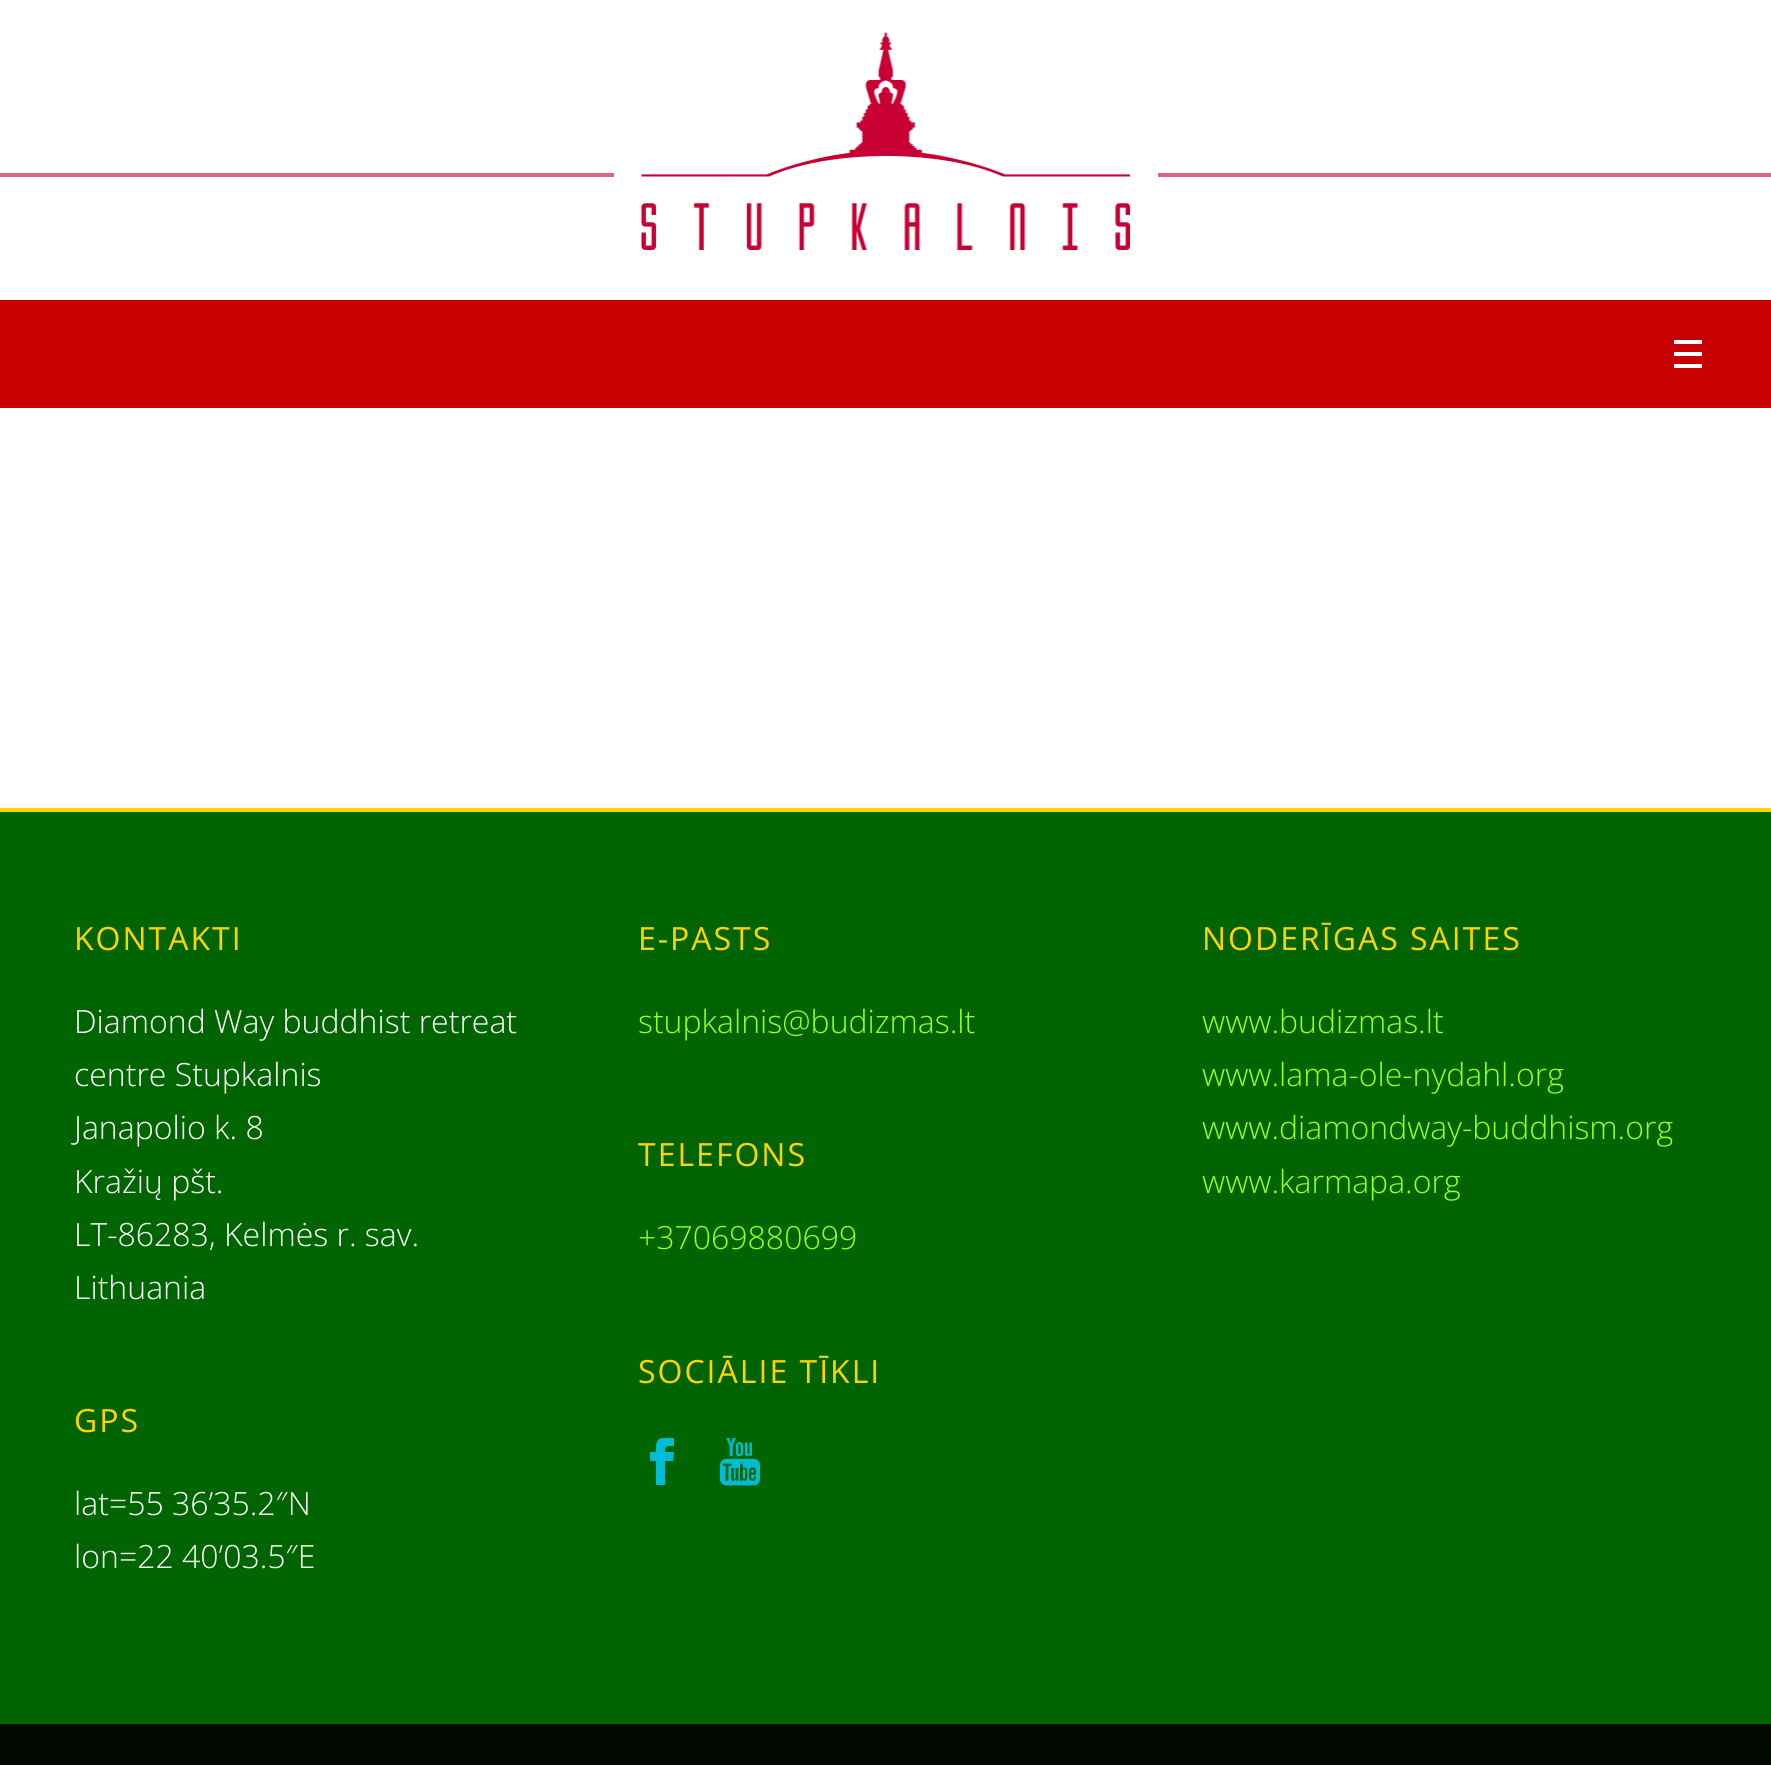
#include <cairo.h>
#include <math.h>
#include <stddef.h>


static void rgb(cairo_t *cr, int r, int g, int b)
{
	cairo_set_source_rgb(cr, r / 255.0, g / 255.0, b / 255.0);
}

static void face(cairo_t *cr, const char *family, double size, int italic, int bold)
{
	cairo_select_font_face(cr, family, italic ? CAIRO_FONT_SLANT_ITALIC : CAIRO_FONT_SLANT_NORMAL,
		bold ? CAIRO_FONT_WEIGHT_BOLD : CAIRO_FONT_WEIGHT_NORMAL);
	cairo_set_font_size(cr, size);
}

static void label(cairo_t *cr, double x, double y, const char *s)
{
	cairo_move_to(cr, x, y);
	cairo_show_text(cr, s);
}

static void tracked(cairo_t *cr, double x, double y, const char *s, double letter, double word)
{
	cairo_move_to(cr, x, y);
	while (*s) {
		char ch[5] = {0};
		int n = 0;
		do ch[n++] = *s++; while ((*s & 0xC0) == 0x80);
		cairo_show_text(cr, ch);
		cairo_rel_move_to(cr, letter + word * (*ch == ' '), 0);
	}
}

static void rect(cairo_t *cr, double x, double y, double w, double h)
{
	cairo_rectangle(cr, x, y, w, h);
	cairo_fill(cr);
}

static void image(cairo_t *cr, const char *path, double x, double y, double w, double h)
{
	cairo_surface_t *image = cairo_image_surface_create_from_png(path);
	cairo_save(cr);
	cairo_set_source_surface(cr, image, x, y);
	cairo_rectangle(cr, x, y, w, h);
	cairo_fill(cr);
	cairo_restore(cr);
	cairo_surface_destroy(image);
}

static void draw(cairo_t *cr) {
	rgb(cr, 255, 255, 255);
	cairo_paint(cr);
	rgb(cr, 222, 100, 130);
	rect(cr, 0, 173, 1771, 4);
	image(cr, "image0.png", 614, 32, 544, 218);
	rgb(cr, 200, 2, 2);
	rect(cr, 0, 300, 1771, 108);
	rgb(cr, 255, 255, 255);
	rect(cr, 1674, 352, 28, 4);
	rect(cr, 1674, 340, 28, 4);
	rect(cr, 1674, 364, 28, 4);
	rgb(cr, 0, 101, 1);
	rect(cr, 0, 812, 1771, 912);
	rgb(cr, 255, 211, 0);
	rect(cr, 0, 808, 1771, 4);
	face(cr, "Open Sans", 32, 0, 0);
	tracked(cr, 74, 950, "KONTAKTI", 2, 0);
	face(cr, "Open Sans Light", 32, 0, 0);
	rgb(cr, 255, 255, 255);
	label(cr, 74, 1033, "Diamond Way buddhist retreat");
	label(cr, 74, 1086, "centre Stupkalnis");
	label(cr, 74, 1139, "Janapolio k. 8");
	label(cr, 74, 1193, "Kražių pšt.");
	label(cr, 74, 1246, "LT-86283, Kelmės r. sav.");
	label(cr, 74, 1299, "Lithuania");
	face(cr, "Open Sans", 32, 0, 0);
	rgb(cr, 255, 211, 0);
	tracked(cr, 74, 1432, "GPS", 2, 0);
	face(cr, "Open Sans Light", 32, 0, 0);
	rgb(cr, 255, 255, 255);
	label(cr, 74, 1515, "lat=55 36’35.2″N");
	label(cr, 74, 1568, "lon=22 40’03.5″E");
	face(cr, "Open Sans", 32, 0, 0);
	rgb(cr, 255, 211, 0);
	tracked(cr, 638, 950, "E-PASTS", 2, 0);
	face(cr, "Open Sans Light", 32, 0, 0);
	rgb(cr, 162, 255, 16);
	label(cr, 638, 1033, "stupkalnis@budizmas.lt");
	face(cr, "Open Sans", 32, 0, 0);
	rgb(cr, 255, 211, 0);
	tracked(cr, 638, 1166, "TELEFONS", 2, 0);
	face(cr, "Open Sans Light", 32, 0, 0);
	rgb(cr, 162, 255, 16);
	label(cr, 638, 1249, "+37069880699");
	face(cr, "Open Sans", 32, 0, 0);
	rgb(cr, 255, 211, 0);
	tracked(cr, 638, 1383, "SOCIĀLIE TĪKLI", 2, 0);
	cairo_save(cr);
	cairo_rectangle(cr, 638, 1438, 48, 48);
	cairo_clip(cr);
	rgb(cr, 0, 188, 212);
	cairo_new_path(cr);
	cairo_move_to(cr, 656, 1447);
	cairo_line_to(cr, 656, 1452);
	cairo_line_to(cr, 650, 1452);
	cairo_line_to(cr, 650, 1461);
	cairo_line_to(cr, 656, 1461);
	cairo_line_to(cr, 656, 1485);
	cairo_line_to(cr, 665, 1485);
	cairo_line_to(cr, 665, 1461);
	cairo_line_to(cr, 673, 1461);
	cairo_line_to(cr, 674, 1452);
	cairo_line_to(cr, 665, 1452);
	cairo_curve_to(cr, 665, 1445, 667, 1446, 674, 1446);
	cairo_line_to(cr, 674, 1437);
	cairo_curve_to(cr, 666, 1437, 656, 1436, 656, 1447);
	cairo_close_path(cr);
	cairo_fill(cr);
	cairo_restore(cr);
	image(cr, "image1.png", 720, 1438, 40, 48);
	tracked(cr, 1202, 950, "NODERĪGAS SAITES", 2, 0);
	face(cr, "Open Sans Light", 32, 0, 0);
	rgb(cr, 162, 255, 16);
	label(cr, 1202, 1033, "www.budizmas.lt");
	label(cr, 1202, 1086, "www.lama-ole-nydahl.org");
	label(cr, 1202, 1139, "www.diamondway-buddhism.org");
	label(cr, 1202, 1193, "www.karmapa.org");
	rgb(cr, 2, 9, 0);
	rect(cr, 0, 1724, 1771, 41);
}

int main(void) {
	cairo_surface_t *surface = cairo_image_surface_create(CAIRO_FORMAT_RGB24, 1771, 1765);
	cairo_t *cr = cairo_create(surface);
	cairo_font_options_t *options = cairo_font_options_create();
	cairo_font_options_set_hint_metrics(options, CAIRO_HINT_METRICS_OFF);
	cairo_font_options_set_hint_style(options, CAIRO_HINT_STYLE_NONE);
	cairo_set_font_options(cr, options);
	cairo_set_miter_limit(cr, 4);
	draw(cr);
	cairo_surface_write_to_png(surface, "render.png");
	cairo_font_options_destroy(options);
	cairo_destroy(cr);
	cairo_surface_destroy(surface);
	return 0;
}
